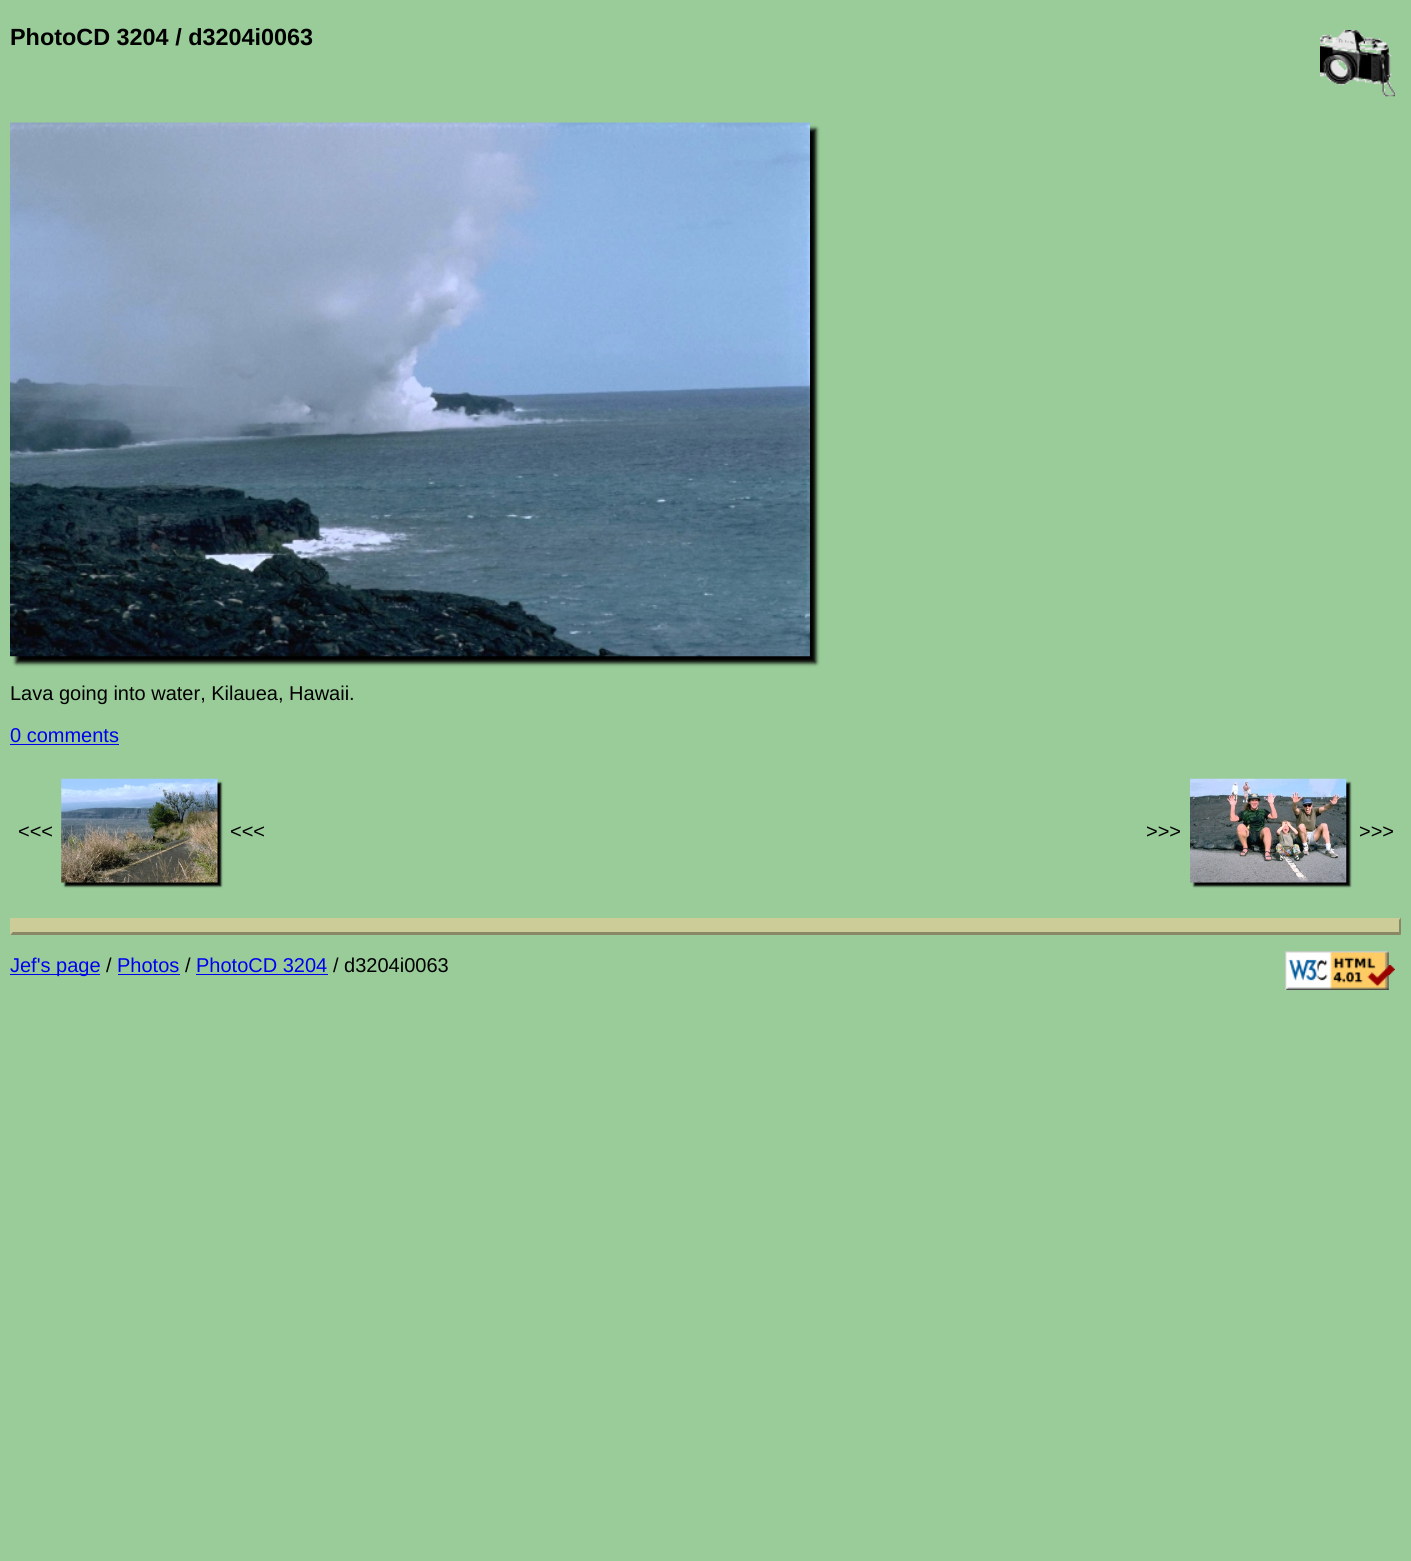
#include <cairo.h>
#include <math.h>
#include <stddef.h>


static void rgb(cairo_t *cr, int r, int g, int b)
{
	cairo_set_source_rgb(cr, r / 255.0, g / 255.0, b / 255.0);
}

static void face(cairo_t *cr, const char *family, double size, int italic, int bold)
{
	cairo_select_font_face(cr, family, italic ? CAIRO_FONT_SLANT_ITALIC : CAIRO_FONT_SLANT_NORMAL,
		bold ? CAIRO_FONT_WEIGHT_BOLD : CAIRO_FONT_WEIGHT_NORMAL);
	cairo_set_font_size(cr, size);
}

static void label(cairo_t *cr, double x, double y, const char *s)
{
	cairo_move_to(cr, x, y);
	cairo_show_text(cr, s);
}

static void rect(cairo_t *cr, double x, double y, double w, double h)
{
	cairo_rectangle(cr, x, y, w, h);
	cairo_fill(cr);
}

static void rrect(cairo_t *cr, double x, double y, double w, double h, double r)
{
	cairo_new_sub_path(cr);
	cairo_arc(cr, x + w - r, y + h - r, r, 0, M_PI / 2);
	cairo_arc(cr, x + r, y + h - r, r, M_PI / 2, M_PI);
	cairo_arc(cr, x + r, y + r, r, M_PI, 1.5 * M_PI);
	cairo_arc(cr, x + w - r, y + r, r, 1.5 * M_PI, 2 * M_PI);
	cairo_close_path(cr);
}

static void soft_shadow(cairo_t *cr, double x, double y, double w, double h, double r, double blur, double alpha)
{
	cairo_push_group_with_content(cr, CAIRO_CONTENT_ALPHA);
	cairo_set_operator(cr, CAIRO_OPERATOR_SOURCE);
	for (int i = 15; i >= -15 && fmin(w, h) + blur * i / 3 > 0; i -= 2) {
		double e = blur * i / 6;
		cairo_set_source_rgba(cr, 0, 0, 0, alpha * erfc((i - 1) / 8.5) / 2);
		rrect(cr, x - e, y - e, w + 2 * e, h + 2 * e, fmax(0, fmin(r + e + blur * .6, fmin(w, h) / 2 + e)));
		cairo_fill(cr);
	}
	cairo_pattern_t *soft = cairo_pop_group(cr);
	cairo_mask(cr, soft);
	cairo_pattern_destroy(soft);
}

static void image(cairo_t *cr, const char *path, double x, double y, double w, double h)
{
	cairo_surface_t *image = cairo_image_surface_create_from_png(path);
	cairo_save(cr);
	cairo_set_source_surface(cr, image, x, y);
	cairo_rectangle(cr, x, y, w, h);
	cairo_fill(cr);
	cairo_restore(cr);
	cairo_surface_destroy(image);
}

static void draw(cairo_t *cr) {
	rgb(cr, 153, 204, 153);
	cairo_paint(cr);
	face(cr, "Liberation Sans", 23.4, 0, 1);
	rgb(cr, 0, 0, 0);
	label(cr, 10, 45, "PhotoCD 3204 / d3204i0063");
	image(cr, "image0.png", 1320, 30, 75, 67);
	rgb(cr, 0, 0, 0);
	soft_shadow(cr, 16, 129, 800, 534, 0, 2, 1);
	image(cr, "image1.png", 10, 122, 800, 535);
	face(cr, "Liberation Sans", 20, 0, 0);
	rgb(cr, 0, 0, 0);
	label(cr, 10, 700, "Lava going into water, Kilauea, Hawaii.");
	rgb(cr, 0, 0, 238);
	label(cr, 10, 742, "0 comments");
	rect(cr, 10, 744, 109, 1);
	rgb(cr, 0, 0, 0);
	label(cr, 18, 838, "<<<");
	rgb(cr, 0, 0, 0);
	soft_shadow(cr, 65, 783, 156, 103, 0, 1, 1);
	image(cr, "image2.png", 61, 778, 157, 105);
	rgb(cr, 0, 0, 0);
	label(cr, 230, 838, "<<<");
	label(cr, 1146, 838, ">>>");
	rgb(cr, 0, 0, 0);
	soft_shadow(cr, 1194, 783, 156, 103, 0, 1, 1);
	image(cr, "image3.png", 1190, 778, 157, 105);
	rgb(cr, 0, 0, 0);
	label(cr, 1359, 838, ">>>");
	rgb(cr, 204, 204, 153);
	rect(cr, 10, 918, 1391, 17);
	rgb(cr, 136, 136, 102);
	cairo_new_path(cr);
	cairo_move_to(cr, 1401, 917.5);
	cairo_line_to(cr, 1401, 935);
	cairo_line_to(cr, 1399, 932.5);
	cairo_line_to(cr, 1399, 920);
	cairo_close_path(cr);
	cairo_fill(cr);
	cairo_new_path(cr);
	cairo_move_to(cr, 1401, 935);
	cairo_line_to(cr, 10, 935);
	cairo_line_to(cr, 12, 932);
	cairo_line_to(cr, 1399, 932);
	cairo_close_path(cr);
	cairo_fill(cr);
	rgb(cr, 204, 204, 153);
	cairo_new_path(cr);
	cairo_move_to(cr, 10, 935);
	cairo_line_to(cr, 10, 917.5);
	cairo_line_to(cr, 12.5, 920);
	cairo_line_to(cr, 12.5, 932.5);
	cairo_close_path(cr);
	cairo_fill(cr);
	rgb(cr, 0, 0, 238);
	rect(cr, 10, 974, 90, 1);
	label(cr, 10, 972, "Jef's page");
	rgb(cr, 0, 0, 0);
	label(cr, 106, 972, "/");
	rgb(cr, 0, 0, 238);
	label(cr, 117, 972, "Photos");
	rect(cr, 118, 974, 62, 1);
	rgb(cr, 0, 0, 0);
	label(cr, 185, 972, "/");
	rgb(cr, 0, 0, 238);
	label(cr, 196, 972, "PhotoCD 3204");
	rect(cr, 196, 974, 132, 1);
	rgb(cr, 0, 0, 0);
	label(cr, 333, 972, "/ d3204i0063");
	image(cr, "image4.png", 1285, 951, 110, 39);
}

int main(void) {
	cairo_surface_t *surface = cairo_image_surface_create(CAIRO_FORMAT_RGB24, 1411, 1561);
	cairo_t *cr = cairo_create(surface);
	cairo_font_options_t *options = cairo_font_options_create();
	cairo_font_options_set_hint_metrics(options, CAIRO_HINT_METRICS_OFF);
	cairo_font_options_set_hint_style(options, CAIRO_HINT_STYLE_NONE);
	cairo_set_font_options(cr, options);
	cairo_set_miter_limit(cr, 4);
	draw(cr);
	cairo_surface_write_to_png(surface, "render.png");
	cairo_font_options_destroy(options);
	cairo_destroy(cr);
	cairo_surface_destroy(surface);
	return 0;
}
